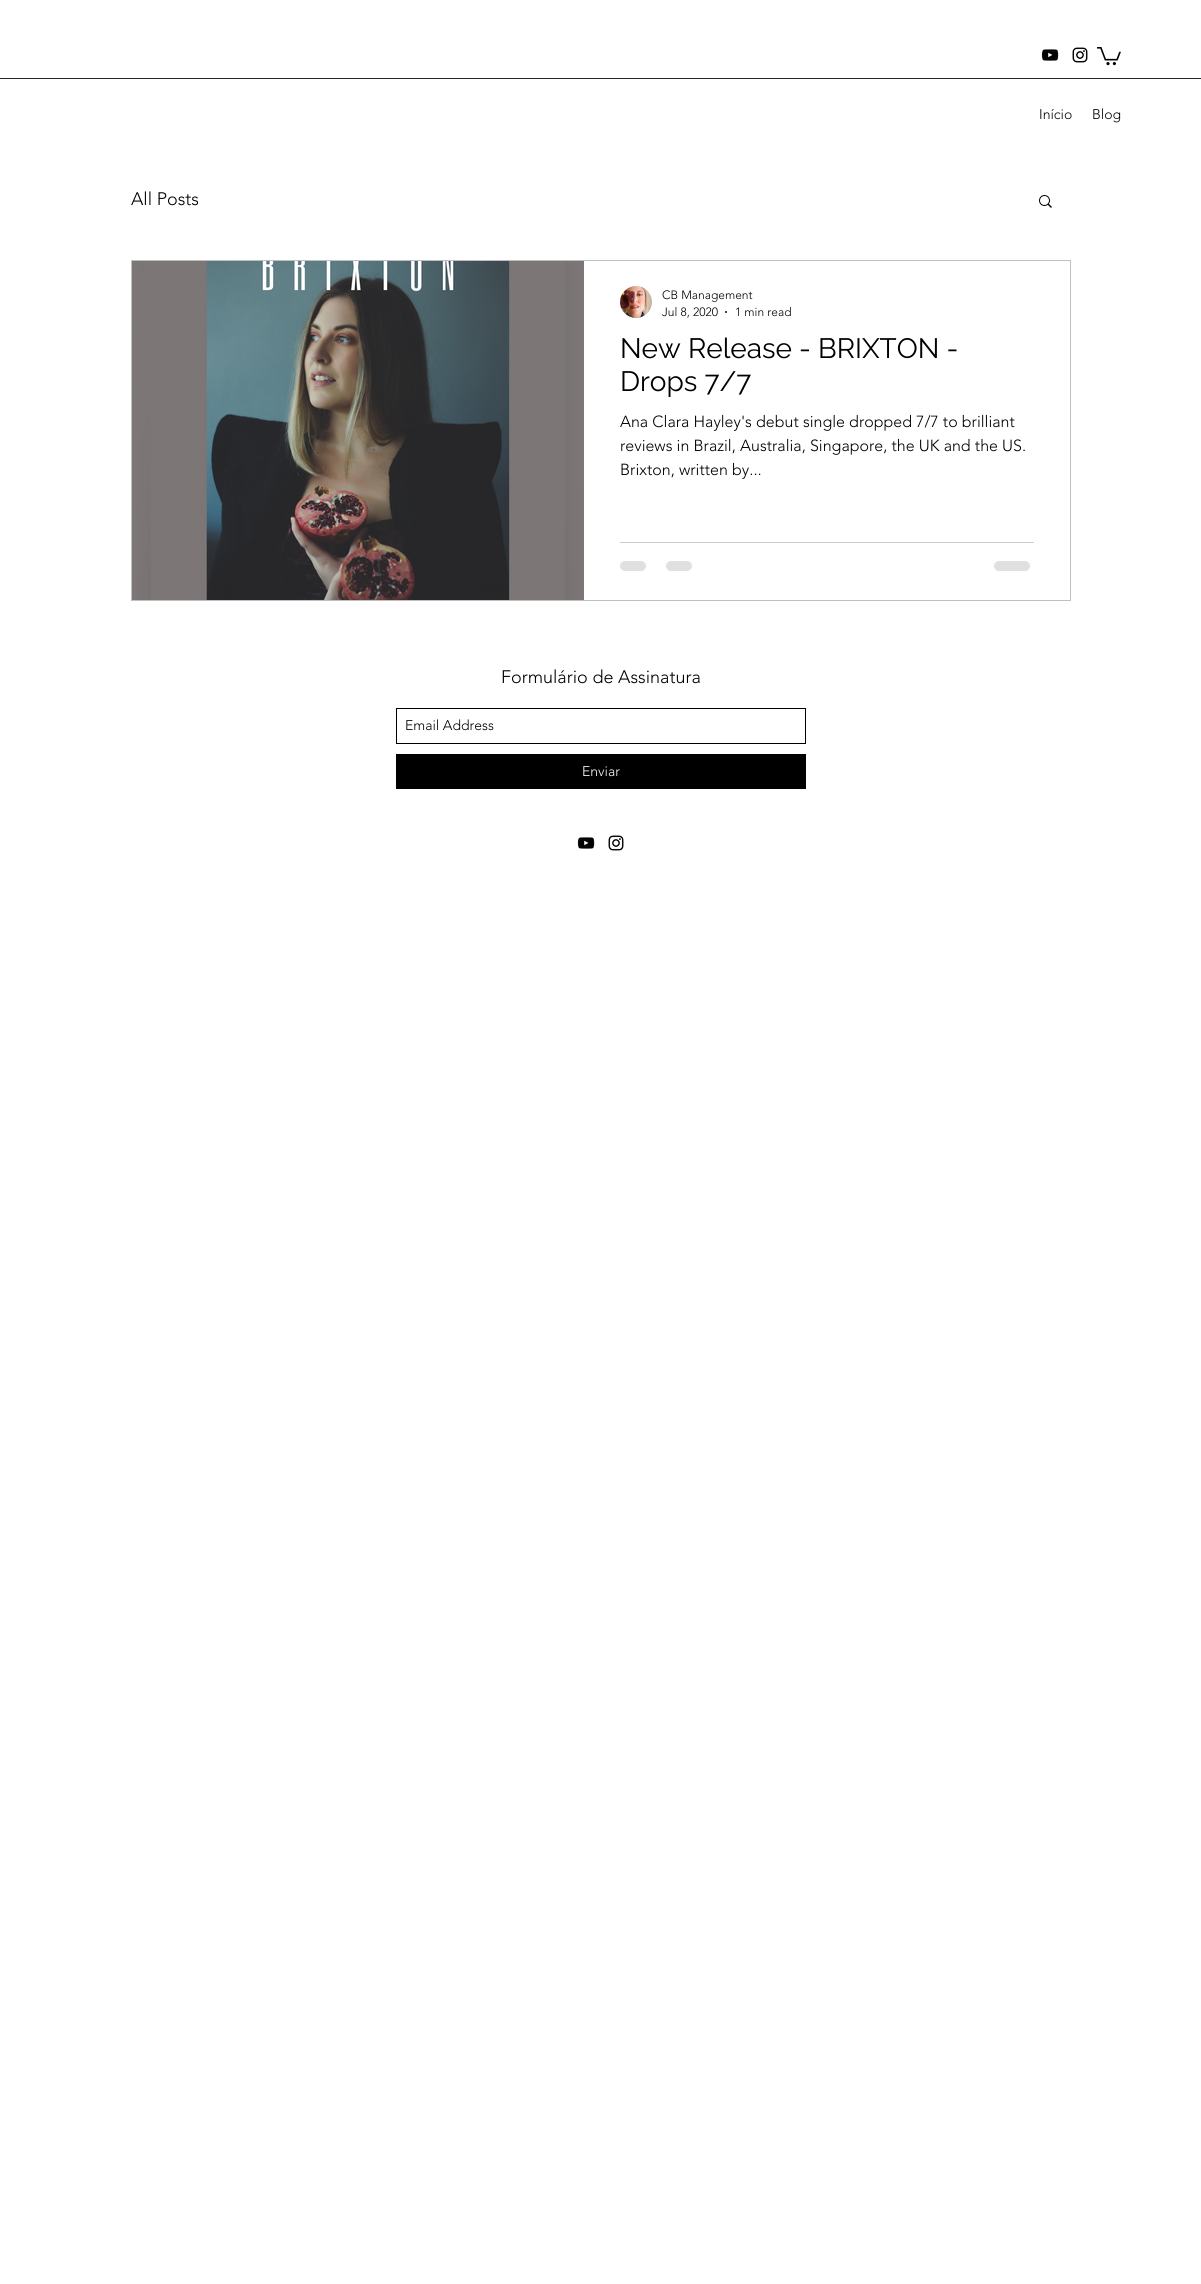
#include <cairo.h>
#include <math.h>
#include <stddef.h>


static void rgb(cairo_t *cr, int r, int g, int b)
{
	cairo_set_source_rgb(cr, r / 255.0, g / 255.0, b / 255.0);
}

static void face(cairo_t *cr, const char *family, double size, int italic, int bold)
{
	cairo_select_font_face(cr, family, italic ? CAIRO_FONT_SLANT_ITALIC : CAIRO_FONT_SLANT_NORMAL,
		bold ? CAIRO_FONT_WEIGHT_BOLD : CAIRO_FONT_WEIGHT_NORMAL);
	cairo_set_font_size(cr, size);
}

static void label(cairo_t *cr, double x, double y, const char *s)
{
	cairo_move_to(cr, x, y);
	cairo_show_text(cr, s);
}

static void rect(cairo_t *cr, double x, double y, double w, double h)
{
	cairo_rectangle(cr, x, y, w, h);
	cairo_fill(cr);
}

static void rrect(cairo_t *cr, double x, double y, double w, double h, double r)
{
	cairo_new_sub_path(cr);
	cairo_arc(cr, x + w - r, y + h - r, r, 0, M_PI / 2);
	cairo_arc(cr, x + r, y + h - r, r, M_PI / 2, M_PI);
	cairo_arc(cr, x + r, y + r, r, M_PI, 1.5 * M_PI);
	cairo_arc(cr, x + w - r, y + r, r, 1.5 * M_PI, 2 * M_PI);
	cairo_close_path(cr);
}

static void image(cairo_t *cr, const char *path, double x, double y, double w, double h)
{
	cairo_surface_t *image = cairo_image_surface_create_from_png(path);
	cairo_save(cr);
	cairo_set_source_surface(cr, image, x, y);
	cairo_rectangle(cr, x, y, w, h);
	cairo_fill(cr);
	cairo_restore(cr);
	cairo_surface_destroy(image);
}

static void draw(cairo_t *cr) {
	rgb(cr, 255, 255, 255);
	cairo_paint(cr);
	image(cr, "image0.png", 1041, 49, 18, 12);
	image(cr, "image1.png", 1072, 47, 16, 16);
	image(cr, "image2.png", 1097, 47, 24, 19);
	rgb(cr, 38, 38, 38);
	rect(cr, 0, 78, 1201, 1);
	face(cr, "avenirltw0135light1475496 Light", 14, 0, 0);
	rgb(cr, 0, 0, 0);
	label(cr, 1039, 119, "Início");
	label(cr, 1092, 119, "Blog");
	face(cr, "avenirltw0135light1475496 Light", 18, 0, 0);
	label(cr, 131, 205, "All Posts");
	image(cr, "image3.png", 1039, 195, 13, 13);
	cairo_rectangle(cr, 131.5, 260.5, 939, 340);
	rgb(cr, 191, 191, 191);
	cairo_set_line_width(cr, 1);
	cairo_stroke(cr);
	image(cr, "image4.png", 132, 261, 452, 339);
	image(cr, "image5.png", 151, 261, 414, 339);
	image(cr, "image6.png", 620, 286, 32, 32);
	face(cr, "avenirltw0135light1475496 Light", 12, 0, 0);
	rgb(cr, 0, 0, 0);
	label(cr, 662, 299, "CB Management");
	label(cr, 662, 316, "Jul 8, 2020");
	cairo_new_path(cr);
	cairo_arc(cr, 726, 312, 1, 0, 2 * M_PI);
	cairo_fill(cr);
	label(cr, 735, 316, "1 min read");
	face(cr, "Raleway", 28, 0, 0);
	label(cr, 620, 358, "New Release - BRIXTON -");
	label(cr, 620, 391, "Drops 7/7");
	face(cr, "avenirltw0135light1475496 Light", 16, 0, 0);
	label(cr, 620, 427, "Ana Clara Hayley's debut single dropped 7/7 to brilliant");
	label(cr, 620, 451, "reviews in Brazil, Australia, Singapore, the UK and the US.");
	label(cr, 620, 475, "Brixton, written by...");
	rgb(cr, 204, 204, 204);
	rect(cr, 620, 542, 414, 1);
	rgb(cr, 224, 224, 224);
	rrect(cr, 620, 561, 26, 10, 5);
	cairo_fill(cr);
	rrect(cr, 666, 561, 26, 10, 5);
	cairo_fill(cr);
	rrect(cr, 994, 561, 36, 10, 5);
	cairo_fill(cr);
	face(cr, "avenirltw0135light1475496 Light", 18, 0, 0);
	rgb(cr, 0, 0, 0);
	label(cr, 501, 683, "Formulário de Assinatura");
	cairo_rectangle(cr, 396.5, 708.5, 409, 35);
	cairo_stroke(cr);
	face(cr, "avenirltw0135light1475496 Light", 14, 0, 0);
	label(cr, 405, 730, "Email Address");
	rect(cr, 396, 754, 410, 35);
	rgb(cr, 255, 255, 255);
	label(cr, 582, 776, "Enviar");
	image(cr, "image0.png", 577, 837, 18, 12);
	image(cr, "image1.png", 608, 835, 16, 16);
}

int main(void) {
	cairo_surface_t *surface = cairo_image_surface_create(CAIRO_FORMAT_RGB24, 1201, 2284);
	cairo_t *cr = cairo_create(surface);
	cairo_font_options_t *options = cairo_font_options_create();
	cairo_font_options_set_hint_metrics(options, CAIRO_HINT_METRICS_OFF);
	cairo_font_options_set_hint_style(options, CAIRO_HINT_STYLE_NONE);
	cairo_set_font_options(cr, options);
	cairo_set_miter_limit(cr, 4);
	draw(cr);
	cairo_surface_write_to_png(surface, "render.png");
	cairo_font_options_destroy(options);
	cairo_destroy(cr);
	cairo_surface_destroy(surface);
	return 0;
}
